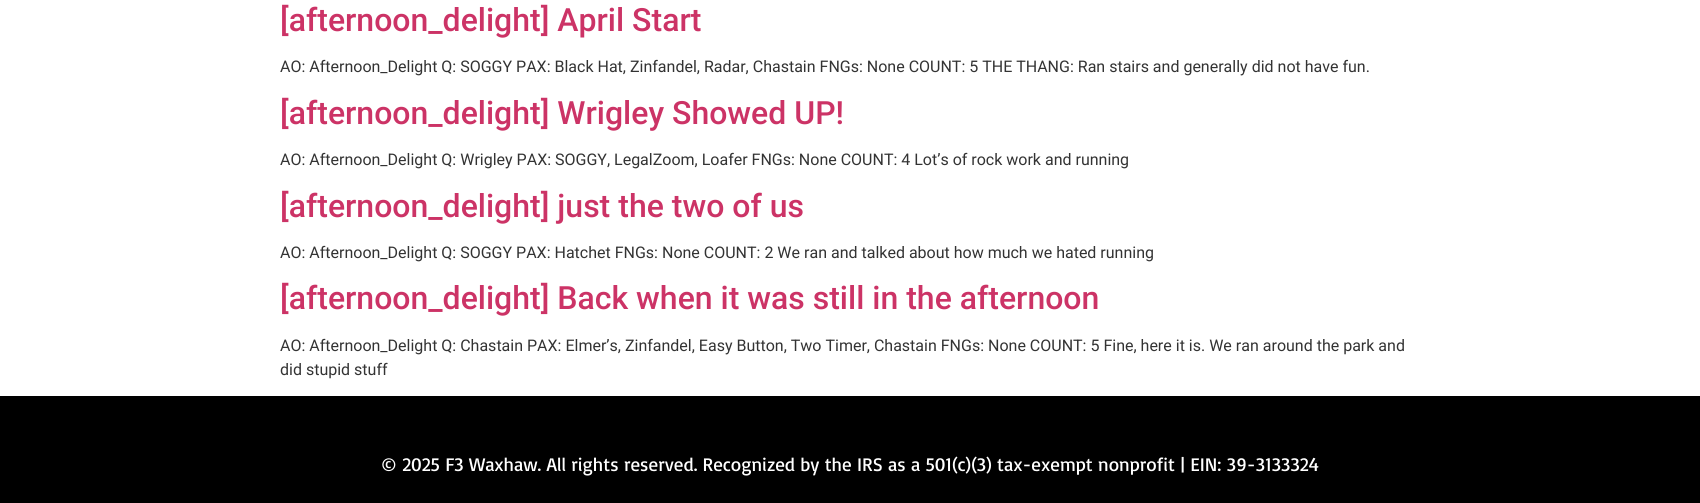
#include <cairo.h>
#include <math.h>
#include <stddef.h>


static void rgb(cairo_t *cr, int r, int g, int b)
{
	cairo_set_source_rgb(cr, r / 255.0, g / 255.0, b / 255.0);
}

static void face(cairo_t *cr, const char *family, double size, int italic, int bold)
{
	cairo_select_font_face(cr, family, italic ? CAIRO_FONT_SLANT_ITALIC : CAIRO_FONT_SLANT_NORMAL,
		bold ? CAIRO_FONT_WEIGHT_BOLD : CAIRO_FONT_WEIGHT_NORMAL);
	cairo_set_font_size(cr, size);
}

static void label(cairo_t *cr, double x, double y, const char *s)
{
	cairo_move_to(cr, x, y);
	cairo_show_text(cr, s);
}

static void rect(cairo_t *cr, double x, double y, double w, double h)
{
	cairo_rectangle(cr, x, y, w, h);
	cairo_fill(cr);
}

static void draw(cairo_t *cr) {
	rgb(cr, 255, 255, 255);
	cairo_paint(cr);
	face(cr, "Roboto Medium", 32, 0, 0);
	rgb(cr, 204, 51, 102);
	label(cr, 280, 31, "[afternoon_delight] April Start");
	face(cr, "Roboto", 16, 0, 0);
	rgb(cr, 51, 51, 51);
	label(cr, 280, 72, "AO: Afternoon_Delight Q: SOGGY PAX: Black Hat, Zinfandel, Radar, Chastain FNGs: None COUNT: 5 THE THANG: Ran stairs and generally did not have fun.");
	face(cr, "Roboto Medium", 32, 0, 0);
	rgb(cr, 204, 51, 102);
	label(cr, 280, 124, "[afternoon_delight] Wrigley Showed UP!");
	face(cr, "Roboto", 16, 0, 0);
	rgb(cr, 51, 51, 51);
	label(cr, 280, 165, "AO: Afternoon_Delight Q: Wrigley PAX: SOGGY, LegalZoom, Loafer FNGs: None COUNT: 4 Lot’s of rock work and running");
	face(cr, "Roboto Medium", 32, 0, 0);
	rgb(cr, 204, 51, 102);
	label(cr, 280, 217, "[afternoon_delight] just the two of us");
	face(cr, "Roboto", 16, 0, 0);
	rgb(cr, 51, 51, 51);
	label(cr, 280, 258, "AO: Afternoon_Delight Q: SOGGY PAX: Hatchet FNGs: None COUNT: 2 We ran and talked about how much we hated running");
	face(cr, "Roboto Medium", 32, 0, 0);
	rgb(cr, 204, 51, 102);
	label(cr, 280, 309, "[afternoon_delight] Back when it was still in the afternoon");
	face(cr, "Roboto", 16, 0, 0);
	rgb(cr, 51, 51, 51);
	label(cr, 280, 351, "AO: Afternoon_Delight Q: Chastain PAX: Elmer’s, Zinfandel, Easy Button, Two Timer, Chastain FNGs: None COUNT: 5 Fine, here it is. We ran around the park and");
	label(cr, 280, 375, "did stupid stuff");
	rgb(cr, 0, 0, 0);
	rect(cr, 0, 396, 1700, 107);
	face(cr, "Basic", 19, 0, 0);
	rgb(cr, 255, 255, 255);
	label(cr, 381, 471, "© 2025 F3 Waxhaw. All rights reserved. Recognized by the IRS as a 501(c)(3) tax-exempt nonprofit | EIN: 39-3133324");
}

int main(void) {
	cairo_surface_t *surface = cairo_image_surface_create(CAIRO_FORMAT_RGB24, 1700, 503);
	cairo_t *cr = cairo_create(surface);
	cairo_font_options_t *options = cairo_font_options_create();
	cairo_font_options_set_hint_metrics(options, CAIRO_HINT_METRICS_OFF);
	cairo_font_options_set_hint_style(options, CAIRO_HINT_STYLE_NONE);
	cairo_set_font_options(cr, options);
	cairo_set_miter_limit(cr, 4);
	draw(cr);
	cairo_surface_write_to_png(surface, "render.png");
	cairo_font_options_destroy(options);
	cairo_destroy(cr);
	cairo_surface_destroy(surface);
	return 0;
}
